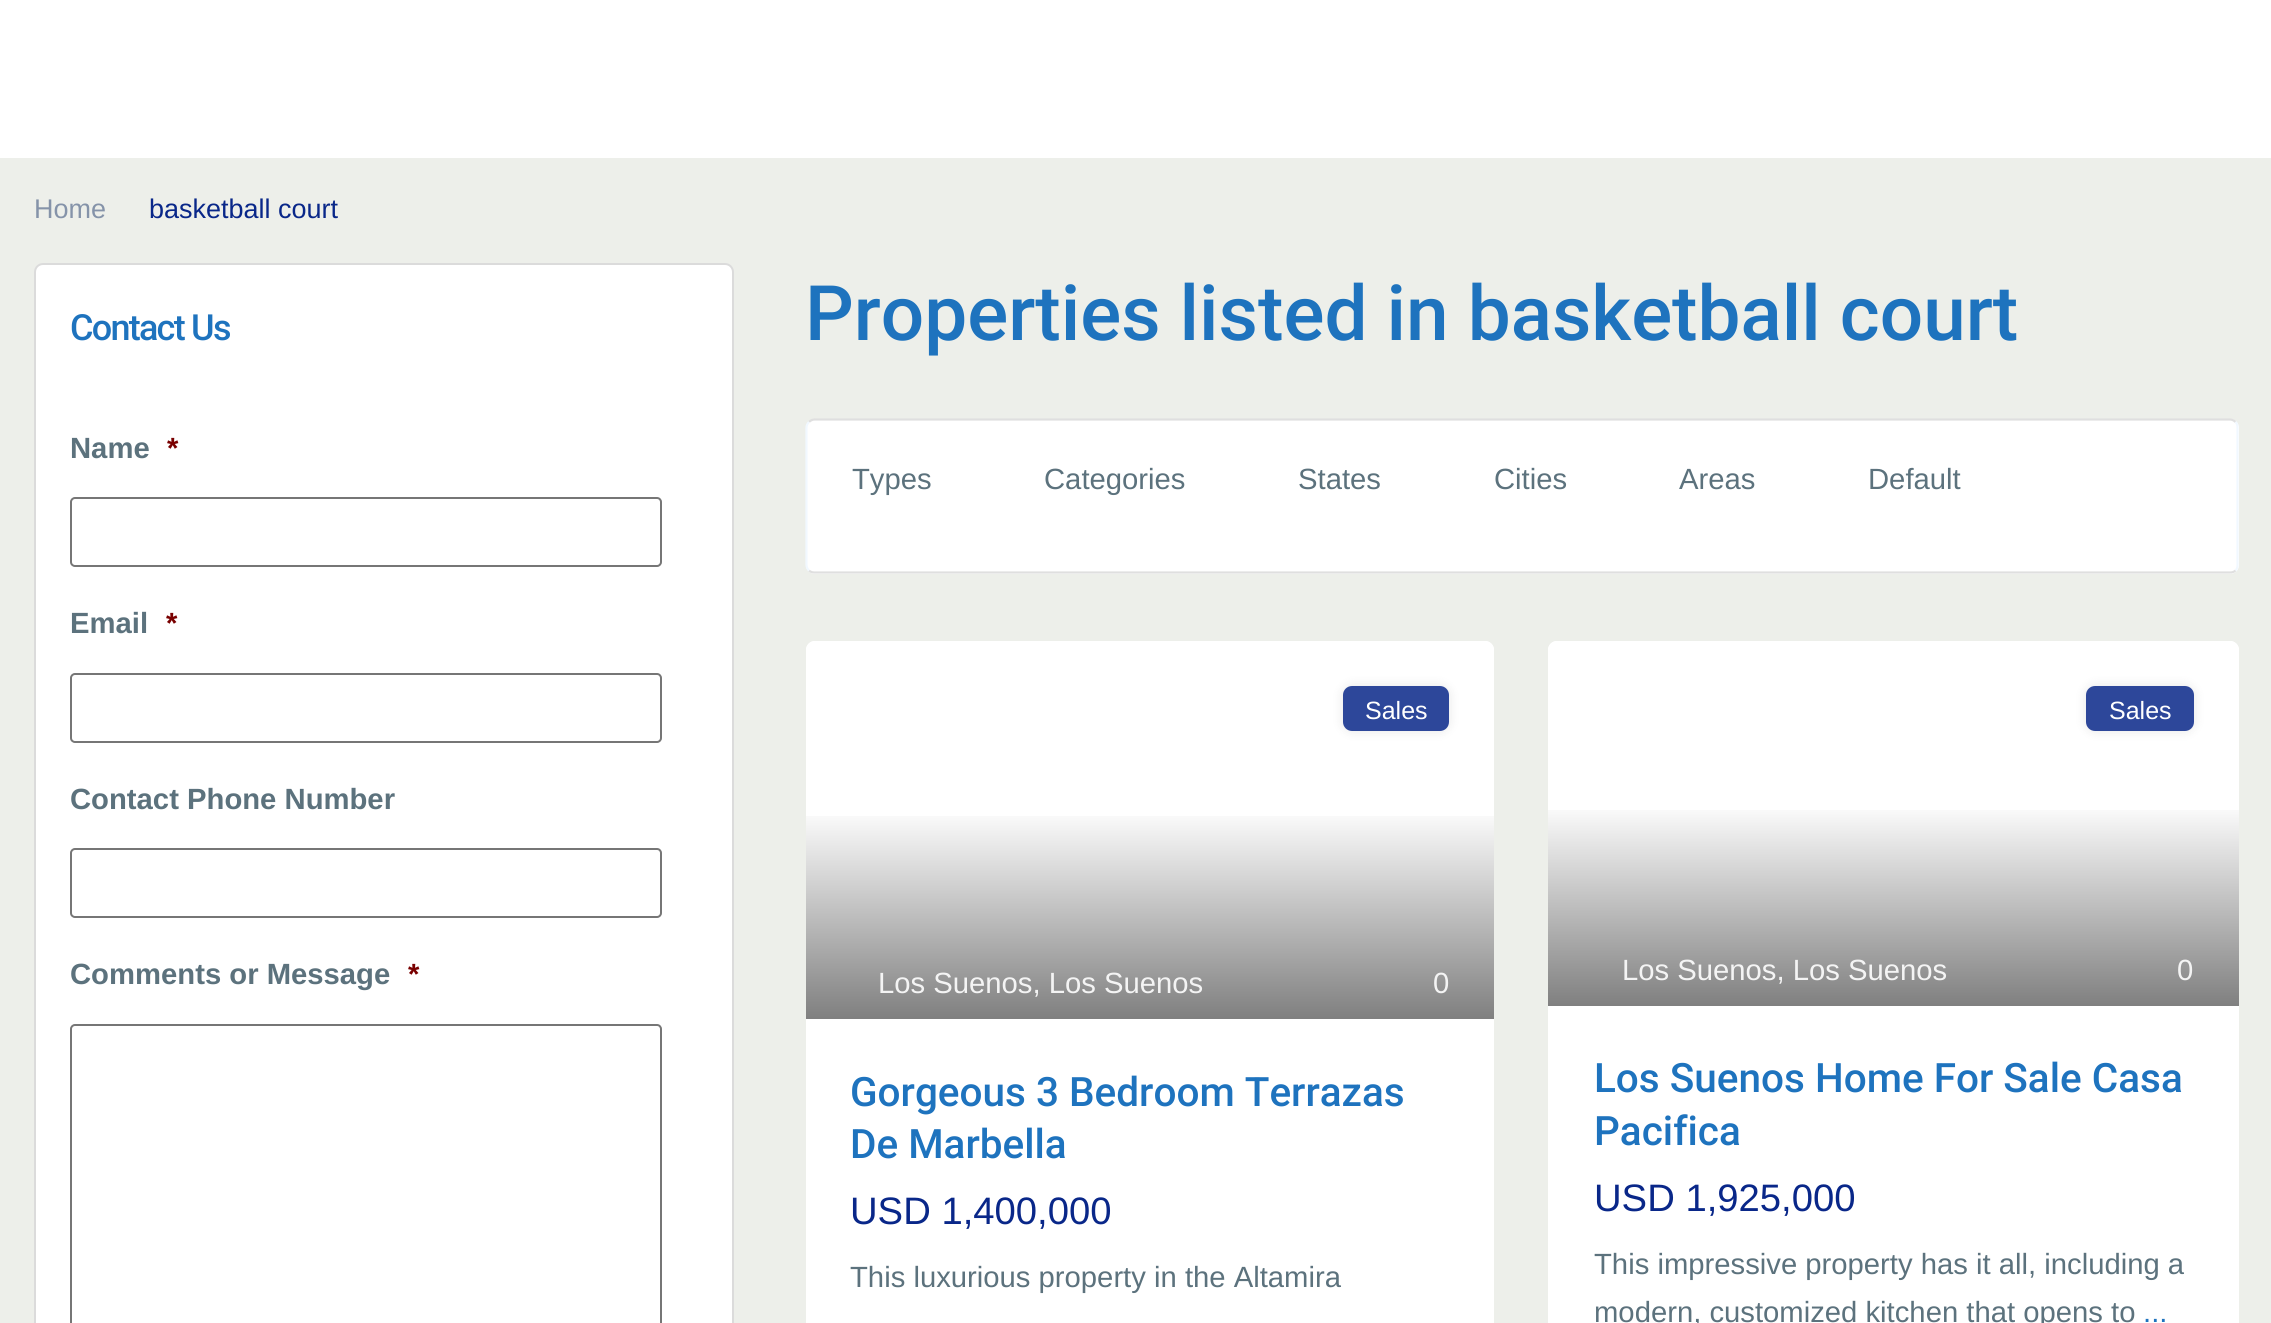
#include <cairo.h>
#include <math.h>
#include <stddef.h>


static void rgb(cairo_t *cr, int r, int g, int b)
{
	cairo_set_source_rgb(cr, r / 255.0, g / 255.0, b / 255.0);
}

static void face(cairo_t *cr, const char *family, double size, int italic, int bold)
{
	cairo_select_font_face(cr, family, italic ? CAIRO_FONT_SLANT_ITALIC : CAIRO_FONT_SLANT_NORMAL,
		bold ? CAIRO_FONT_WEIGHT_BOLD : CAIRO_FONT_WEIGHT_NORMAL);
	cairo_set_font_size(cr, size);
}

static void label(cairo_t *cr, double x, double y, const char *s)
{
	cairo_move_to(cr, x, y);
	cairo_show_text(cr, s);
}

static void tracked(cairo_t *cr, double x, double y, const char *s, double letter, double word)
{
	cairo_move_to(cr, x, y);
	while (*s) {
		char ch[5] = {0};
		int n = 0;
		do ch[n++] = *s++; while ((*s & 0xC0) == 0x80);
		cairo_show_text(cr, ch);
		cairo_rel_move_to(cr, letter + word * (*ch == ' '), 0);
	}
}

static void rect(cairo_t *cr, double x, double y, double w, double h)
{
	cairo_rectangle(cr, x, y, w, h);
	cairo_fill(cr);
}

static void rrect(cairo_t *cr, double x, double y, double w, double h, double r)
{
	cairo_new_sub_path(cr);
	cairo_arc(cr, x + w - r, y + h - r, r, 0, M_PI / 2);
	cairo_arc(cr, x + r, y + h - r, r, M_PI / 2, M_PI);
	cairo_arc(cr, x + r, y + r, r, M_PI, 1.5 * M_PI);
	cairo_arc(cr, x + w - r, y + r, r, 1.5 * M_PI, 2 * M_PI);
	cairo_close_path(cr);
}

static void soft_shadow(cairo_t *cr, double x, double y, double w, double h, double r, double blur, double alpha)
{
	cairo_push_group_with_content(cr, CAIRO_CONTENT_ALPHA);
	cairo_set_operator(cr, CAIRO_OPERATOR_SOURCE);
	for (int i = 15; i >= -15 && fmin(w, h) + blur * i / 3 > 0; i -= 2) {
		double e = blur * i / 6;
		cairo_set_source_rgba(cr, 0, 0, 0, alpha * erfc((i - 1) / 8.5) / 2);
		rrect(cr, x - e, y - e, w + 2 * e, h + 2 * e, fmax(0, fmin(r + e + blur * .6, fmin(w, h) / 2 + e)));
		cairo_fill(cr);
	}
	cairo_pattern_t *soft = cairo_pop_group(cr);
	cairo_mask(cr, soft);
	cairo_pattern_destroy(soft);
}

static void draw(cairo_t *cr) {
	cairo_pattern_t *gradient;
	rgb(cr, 237, 239, 234);
	cairo_paint(cr);
	rgb(cr, 255, 255, 255);
	rect(cr, 0, 0, 2271, 158);
	face(cr, "Liberation Sans", 27, 0, 0);
	rgb(cr, 133, 147, 169);
	label(cr, 34, 218, "Home");
	rgb(cr, 9, 39, 137);
	label(cr, 149, 218, "basketball court");
	rgb(cr, 255, 255, 255);
	rrect(cr, 35, 264, 698, 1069, 8);
	cairo_fill_preserve(cr);
	rgb(cr, 219, 219, 219);
	cairo_stroke(cr);
	face(cr, "Roboto Medium", 36, 0, 0);
	rgb(cr, 30, 115, 190);
	tracked(cr, 70, 340, "Contact Us", -1.75, 0);
	face(cr, "Liberation Sans", 29.25, 0, 1);
	rgb(cr, 92, 114, 125);
	label(cr, 70, 458, "Name");
	rgb(cr, 121, 0, 0);
	label(cr, 167, 458, "*");
	rrect(cr, 71, 498, 590, 68, 4);
	rgb(cr, 118, 118, 118);
	cairo_stroke(cr);
	rgb(cr, 92, 114, 125);
	label(cr, 70, 633, "Email");
	rgb(cr, 121, 0, 0);
	label(cr, 166, 633, "*");
	rrect(cr, 71, 674, 590, 68, 4);
	rgb(cr, 118, 118, 118);
	cairo_stroke(cr);
	rgb(cr, 92, 114, 125);
	label(cr, 70, 809, "Contact Phone Number");
	rrect(cr, 71, 849, 590, 68, 4);
	rgb(cr, 118, 118, 118);
	cairo_stroke(cr);
	rgb(cr, 92, 114, 125);
	label(cr, 70, 984, "Comments or Message");
	rgb(cr, 121, 0, 0);
	label(cr, 408, 984, "*");
	rrect(cr, 71, 1025, 590, 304, 4);
	rgb(cr, 118, 118, 118);
	cairo_stroke(cr);
	face(cr, "Roboto Medium", 76.5, 0, 0);
	rgb(cr, 30, 115, 190);
	label(cr, 805, 340, "Properties listed in basketball court");
	rgb(cr, 255, 255, 255);
	rrect(cr, 806, 419, 1433, 155, 9);
	cairo_fill(cr);
	cairo_new_path(cr);
	cairo_move_to(cr, 809, 422);
	cairo_curve_to(cr, 810.5, 420.5, 812.5, 419.5, 814.5, 419.5);
	cairo_line_to(cr, 2230, 419.5);
	cairo_curve_to(cr, 2232, 419.5, 2234, 420.5, 2235.5, 422);
	rgb(cr, 223, 223, 223);
	cairo_set_line_width(cr, 2.2);
	cairo_stroke(cr);
	cairo_new_path(cr);
	cairo_move_to(cr, 2235.5, 422);
	cairo_curve_to(cr, 2237, 423.5, 2237.5, 425.5, 2237.5, 427.5);
	cairo_line_to(cr, 2237.5, 565);
	cairo_curve_to(cr, 2237.5, 567, 2237, 569, 2235.5, 570.5);
	rgb(cr, 241, 248, 255);
	cairo_stroke(cr);
	cairo_new_path(cr);
	cairo_move_to(cr, 2235.5, 570.5);
	cairo_curve_to(cr, 2234, 572, 2232, 572.5, 2230, 572.5);
	cairo_line_to(cr, 814.5, 572.5);
	cairo_curve_to(cr, 812.5, 572.5, 810.5, 572, 809, 570.5);
	rgb(cr, 223, 223, 223);
	cairo_stroke(cr);
	cairo_new_path(cr);
	cairo_move_to(cr, 809, 570.5);
	cairo_curve_to(cr, 807.5, 569, 806.5, 567, 806.5, 565);
	cairo_line_to(cr, 806.5, 427.5);
	cairo_curve_to(cr, 806.5, 425.5, 807.5, 423.5, 809, 422);
	rgb(cr, 241, 248, 255);
	cairo_stroke(cr);
	face(cr, "Liberation Sans", 29.25, 0, 0);
	rgb(cr, 92, 114, 125);
	label(cr, 852, 489, "Types");
	label(cr, 1044, 489, "Categories");
	label(cr, 1298, 489, "States");
	label(cr, 1494, 489, "Cities");
	label(cr, 1679, 489, "Areas");
	label(cr, 1868, 489, "Default");
	rgb(cr, 255, 255, 255);
	rrect(cr, 806, 641, 688, 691, 9);
	cairo_fill(cr);
	cairo_new_path(cr);
	cairo_move_to(cr, 815, 641);
	cairo_line_to(cr, 1485, 641);
	cairo_curve_to(cr, 1490, 641, 1494, 645, 1494, 650);
	cairo_line_to(cr, 1494, 1019);
	cairo_line_to(cr, 806, 1019);
	cairo_line_to(cr, 806, 650);
	cairo_curve_to(cr, 806, 645, 810, 641, 815, 641);
	cairo_close_path(cr);
	cairo_fill(cr);
	cairo_save(cr);
	cairo_set_fill_rule(cr, CAIRO_FILL_RULE_EVEN_ODD);
	cairo_new_path(cr);
	cairo_move_to(cr, 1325, 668);
	cairo_line_to(cr, 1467, 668);
	cairo_line_to(cr, 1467, 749);
	cairo_line_to(cr, 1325, 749);
	cairo_close_path(cr);
	cairo_move_to(cr, 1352, 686);
	cairo_line_to(cr, 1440, 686);
	cairo_curve_to(cr, 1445, 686, 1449, 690, 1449, 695);
	cairo_line_to(cr, 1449, 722);
	cairo_curve_to(cr, 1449, 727, 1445, 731, 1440, 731);
	cairo_line_to(cr, 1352, 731);
	cairo_curve_to(cr, 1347, 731, 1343, 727, 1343, 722);
	cairo_line_to(cr, 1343, 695);
	cairo_curve_to(cr, 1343, 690, 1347, 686, 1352, 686);
	cairo_close_path(cr);
	cairo_clip(cr);
	rgb(cr, 0, 0, 0);
	soft_shadow(cr, 1343, 686, 106, 45, 9, 5.5, 0.1);
	cairo_restore(cr);
	cairo_set_source_rgba(cr, 0.035, 0.153, 0.537, 0.85);
	rrect(cr, 1343, 686, 106, 45, 9);
	cairo_fill(cr);
	face(cr, "Liberation Sans", 25, 0, 0);
	rgb(cr, 255, 255, 255);
	label(cr, 1365, 719, "Sales");
	gradient = cairo_pattern_create_linear(1150, 1019, 1150, 641);
	cairo_pattern_add_color_stop_rgba(gradient, 0, 0, 0, 0, 0.5);
	cairo_pattern_add_color_stop_rgba(gradient, 0.56, 0, 0, 0, 0);
	cairo_set_source(cr, gradient);
	cairo_pattern_destroy(gradient);
	rect(cr, 806, 816, 688, 203);
	face(cr, "Liberation Sans", 29.25, 0, 0);
	rgb(cr, 244, 244, 244);
	label(cr, 878, 993, "Los Suenos, Los Suenos");
	label(cr, 1433, 993, "0");
	face(cr, "Roboto Medium", 40.5, 0, 0);
	rgb(cr, 30, 115, 190);
	label(cr, 850, 1106, "Gorgeous 3 Bedroom Terrazas");
	label(cr, 850, 1158, "De Marbella");
	face(cr, "Liberation Sans", 38.25, 0, 0);
	rgb(cr, 9, 39, 137);
	label(cr, 850, 1224, "USD 1,400,000");
	face(cr, "Liberation Sans", 29.25, 0, 0);
	rgb(cr, 92, 114, 125);
	label(cr, 850, 1287, "This luxurious property in the Altamira");
	rgb(cr, 255, 255, 255);
	rrect(cr, 1548, 641, 691, 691, 9);
	cairo_fill(cr);
	cairo_new_path(cr);
	cairo_move_to(cr, 1557, 641);
	cairo_line_to(cr, 2230, 641);
	cairo_curve_to(cr, 2235, 641, 2239, 645, 2239, 650);
	cairo_line_to(cr, 2239, 1006);
	cairo_line_to(cr, 1548, 1006);
	cairo_line_to(cr, 1548, 650);
	cairo_curve_to(cr, 1548, 645, 1552, 641, 1557, 641);
	cairo_close_path(cr);
	cairo_fill(cr);
	cairo_save(cr);
	cairo_set_fill_rule(cr, CAIRO_FILL_RULE_EVEN_ODD);
	cairo_new_path(cr);
	cairo_move_to(cr, 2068, 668);
	cairo_line_to(cr, 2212, 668);
	cairo_line_to(cr, 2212, 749);
	cairo_line_to(cr, 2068, 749);
	cairo_close_path(cr);
	cairo_move_to(cr, 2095, 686);
	cairo_line_to(cr, 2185, 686);
	cairo_curve_to(cr, 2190, 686, 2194, 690, 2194, 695);
	cairo_line_to(cr, 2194, 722);
	cairo_curve_to(cr, 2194, 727, 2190, 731, 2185, 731);
	cairo_line_to(cr, 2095, 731);
	cairo_curve_to(cr, 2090, 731, 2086, 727, 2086, 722);
	cairo_line_to(cr, 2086, 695);
	cairo_curve_to(cr, 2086, 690, 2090, 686, 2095, 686);
	cairo_close_path(cr);
	cairo_clip(cr);
	rgb(cr, 0, 0, 0);
	soft_shadow(cr, 2086, 686, 108, 45, 9, 5.5, 0.1);
	cairo_restore(cr);
	cairo_set_source_rgba(cr, 0.035, 0.153, 0.537, 0.85);
	rrect(cr, 2086, 686, 108, 45, 9);
	cairo_fill(cr);
	face(cr, "Liberation Sans", 25, 0, 0);
	rgb(cr, 255, 255, 255);
	label(cr, 2109, 719, "Sales");
	gradient = cairo_pattern_create_linear(1893, 1006, 1893, 641);
	cairo_pattern_add_color_stop_rgba(gradient, 0, 0, 0, 0, 0.5);
	cairo_pattern_add_color_stop_rgba(gradient, 0.56, 0, 0, 0, 0);
	cairo_set_source(cr, gradient);
	cairo_pattern_destroy(gradient);
	rect(cr, 1548, 810, 691, 196);
	face(cr, "Liberation Sans", 29.25, 0, 0);
	rgb(cr, 244, 244, 244);
	label(cr, 1622, 980, "Los Suenos, Los Suenos");
	label(cr, 2177, 980, "0");
	face(cr, "Roboto Medium", 40.5, 0, 0);
	rgb(cr, 30, 115, 190);
	label(cr, 1594, 1092, "Los Suenos Home For Sale Casa");
	label(cr, 1594, 1145, "Pacifica");
	face(cr, "Liberation Sans", 38.25, 0, 0);
	rgb(cr, 9, 39, 137);
	label(cr, 1594, 1211, "USD 1,925,000");
	face(cr, "Liberation Sans", 29.25, 0, 0);
	rgb(cr, 92, 114, 125);
	label(cr, 1594, 1274, "This impressive property has it all, including a");
	label(cr, 1594, 1322, "modern, customized kitchen that opens to");
	rgb(cr, 30, 115, 190);
	label(cr, 2143, 1322, "...");
}

int main(void) {
	cairo_surface_t *surface = cairo_image_surface_create(CAIRO_FORMAT_RGB24, 2271, 1323);
	cairo_t *cr = cairo_create(surface);
	cairo_font_options_t *options = cairo_font_options_create();
	cairo_font_options_set_hint_metrics(options, CAIRO_HINT_METRICS_OFF);
	cairo_font_options_set_hint_style(options, CAIRO_HINT_STYLE_NONE);
	cairo_set_font_options(cr, options);
	cairo_set_miter_limit(cr, 4);
	draw(cr);
	cairo_surface_write_to_png(surface, "render.png");
	cairo_font_options_destroy(options);
	cairo_destroy(cr);
	cairo_surface_destroy(surface);
	return 0;
}
